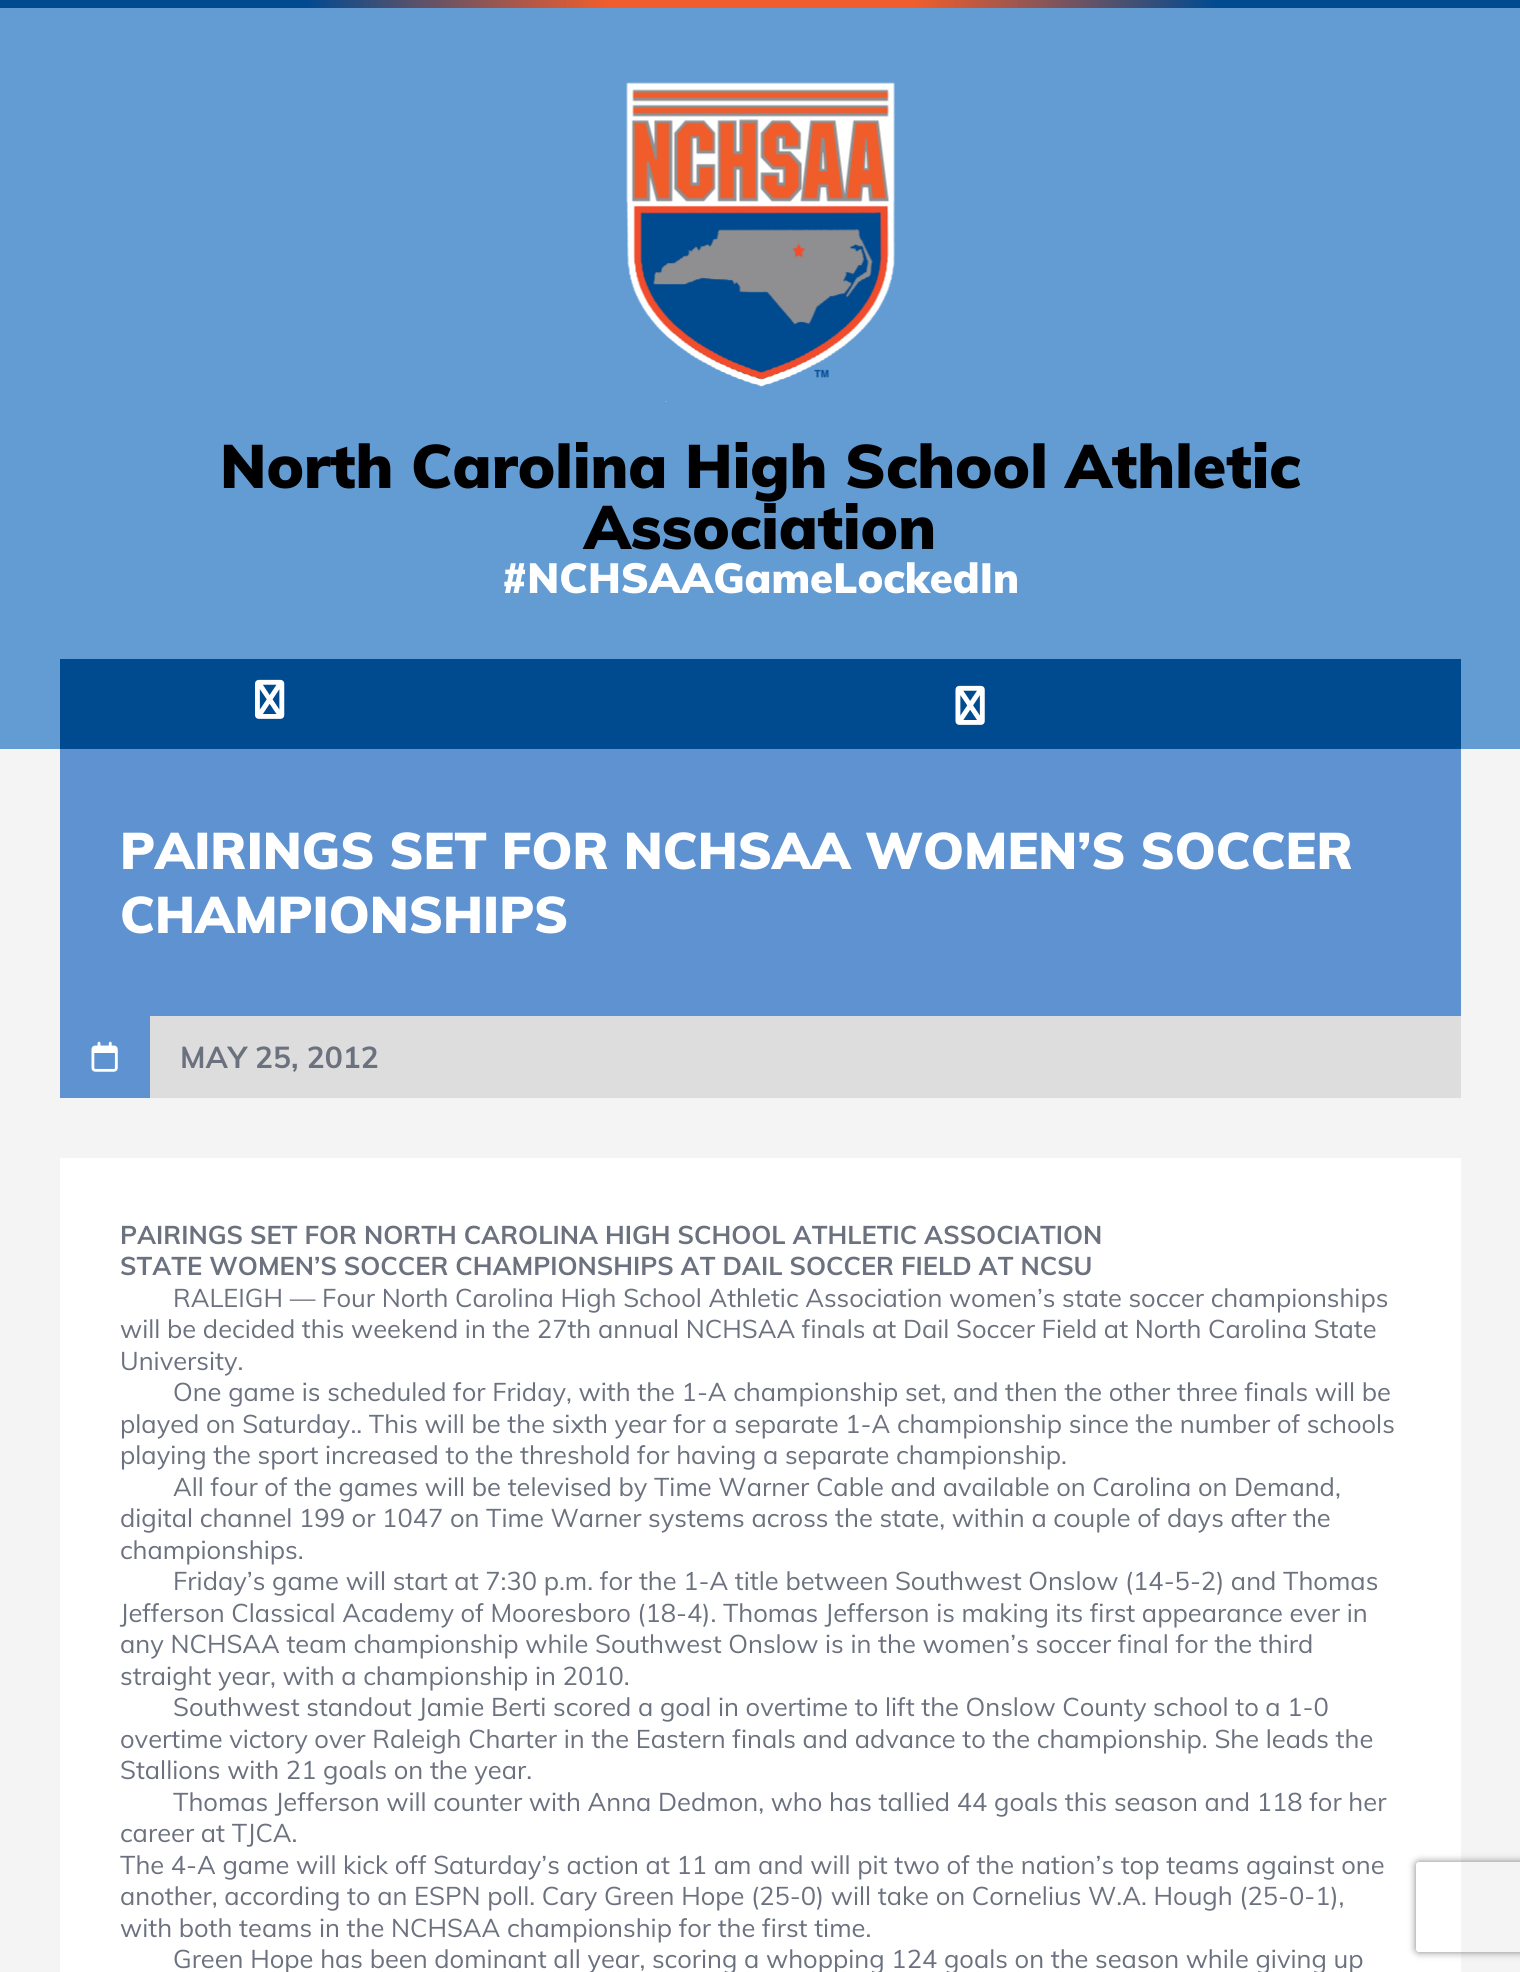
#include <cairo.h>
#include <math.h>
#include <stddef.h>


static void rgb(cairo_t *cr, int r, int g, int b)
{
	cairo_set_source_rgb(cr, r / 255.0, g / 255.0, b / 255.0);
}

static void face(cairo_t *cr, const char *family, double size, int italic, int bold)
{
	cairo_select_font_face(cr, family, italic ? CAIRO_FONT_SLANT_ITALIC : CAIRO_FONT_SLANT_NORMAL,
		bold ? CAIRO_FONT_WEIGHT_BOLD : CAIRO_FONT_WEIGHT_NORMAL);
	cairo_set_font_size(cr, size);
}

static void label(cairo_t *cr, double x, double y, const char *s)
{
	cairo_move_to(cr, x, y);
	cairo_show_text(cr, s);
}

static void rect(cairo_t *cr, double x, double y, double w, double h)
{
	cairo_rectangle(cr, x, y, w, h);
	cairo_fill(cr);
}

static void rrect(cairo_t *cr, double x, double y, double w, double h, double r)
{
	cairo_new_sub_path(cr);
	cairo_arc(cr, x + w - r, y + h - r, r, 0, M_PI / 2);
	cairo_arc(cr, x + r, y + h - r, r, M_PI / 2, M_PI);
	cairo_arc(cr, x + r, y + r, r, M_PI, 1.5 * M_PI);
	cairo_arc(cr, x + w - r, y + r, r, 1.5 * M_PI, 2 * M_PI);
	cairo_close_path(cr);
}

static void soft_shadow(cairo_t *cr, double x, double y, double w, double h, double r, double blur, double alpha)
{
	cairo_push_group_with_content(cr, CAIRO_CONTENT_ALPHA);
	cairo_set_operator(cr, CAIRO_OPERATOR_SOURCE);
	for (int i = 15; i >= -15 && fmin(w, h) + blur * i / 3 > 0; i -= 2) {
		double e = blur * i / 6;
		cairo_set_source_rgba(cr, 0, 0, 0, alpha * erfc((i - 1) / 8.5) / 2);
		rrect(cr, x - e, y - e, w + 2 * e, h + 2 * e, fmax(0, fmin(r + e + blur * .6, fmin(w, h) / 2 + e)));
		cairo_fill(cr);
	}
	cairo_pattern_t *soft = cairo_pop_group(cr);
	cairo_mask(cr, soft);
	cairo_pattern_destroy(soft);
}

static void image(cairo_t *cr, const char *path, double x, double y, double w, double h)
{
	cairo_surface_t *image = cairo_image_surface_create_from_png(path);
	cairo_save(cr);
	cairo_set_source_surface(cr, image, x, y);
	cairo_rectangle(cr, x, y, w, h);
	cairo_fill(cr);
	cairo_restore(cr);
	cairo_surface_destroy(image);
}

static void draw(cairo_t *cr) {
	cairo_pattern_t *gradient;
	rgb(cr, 244, 244, 244);
	cairo_paint(cr);
	rgb(cr, 98, 156, 211);
	rect(cr, 0, 8, 1520, 741);
	gradient = cairo_pattern_create_linear(0, 3.8, 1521, 3.7);
	cairo_pattern_add_color_stop_rgba(gradient, 0, 0, 0.29, 0.565, 1);
	cairo_pattern_add_color_stop_rgba(gradient, 0.2, 0, 0.29, 0.565, 1);
	cairo_pattern_add_color_stop_rgba(gradient, 0.4, 0.945, 0.365, 0.173, 1);
	cairo_pattern_add_color_stop_rgba(gradient, 0.6, 0.945, 0.365, 0.173, 1);
	cairo_pattern_add_color_stop_rgba(gradient, 0.8, 0, 0.29, 0.565, 1);
	cairo_pattern_add_color_stop_rgba(gradient, 1, 0, 0.29, 0.565, 1);
	cairo_set_source(cr, gradient);
	cairo_pattern_destroy(gradient);
	rect(cr, 0, 0, 1520, 8);
	image(cr, "image0.png", 626, 82, 269, 320);
	face(cr, "Muli Black", 60.75, 0, 0);
	rgb(cr, 0, 0, 0);
	label(cr, 220, 488, "North Carolina High School Athletic");
	label(cr, 584, 549, "Association");
	face(cr, "Muli Black", 41.8, 0, 0);
	rgb(cr, 255, 255, 255);
	label(cr, 502, 593, "#NCHSAAGameLockedIn");
	rgb(cr, 0, 74, 144);
	rect(cr, 60, 659, 1401, 90);
	image(cr, "image1.png", 255, 679, 30, 40);
	image(cr, "image2.png", 955, 685, 30, 40);
	rgb(cr, 94, 146, 209);
	rect(cr, 60, 749, 1401, 267);
	face(cr, "Muli Black", 51, 0, 0);
	rgb(cr, 255, 255, 255);
	label(cr, 120, 869, "PAIRINGS SET FOR NCHSAA WOMEN’S SOCCER");
	label(cr, 120, 933, "CHAMPIONSHIPS");
	rgb(cr, 221, 221, 221);
	rect(cr, 150, 1016, 1311, 82);
	rgb(cr, 94, 146, 209);
	rect(cr, 60, 1016, 90, 82);
	image(cr, "image3.png", 91, 1041, 27, 31);
	face(cr, "Muli", 30, 0, 1);
	rgb(cr, 107, 113, 126);
	label(cr, 180, 1068, "MAY 25, 2012");
	rgb(cr, 255, 255, 255);
	rect(cr, 60, 1158, 1401, 814);
	face(cr, "Muli", 25.5, 0, 1);
	rgb(cr, 107, 113, 126);
	label(cr, 120, 1244, "PAIRINGS SET FOR NORTH CAROLINA HIGH SCHOOL ATHLETIC ASSOCIATION");
	label(cr, 120, 1275, "STATE WOMEN’S SOCCER CHAMPIONSHIPS AT DAIL SOCCER FIELD AT NCSU");
	face(cr, "Muli", 25.5, 0, 0);
	label(cr, 173, 1307, "RALEIGH — Four North Carolina High School Athletic Association women’s state soccer championships");
	label(cr, 120, 1338, "will be decided this weekend in the 27th annual NCHSAA finals at Dail Soccer Field at North Carolina State");
	label(cr, 120, 1370, "University.");
	label(cr, 173, 1401, "One game is scheduled for Friday, with the 1-A championship set, and then the other three finals will be");
	label(cr, 120, 1433, "played on Saturday.. This will be the sixth year for a separate 1-A championship since the number of schools");
	label(cr, 120, 1464, "playing the sport increased to the threshold for having a separate championship.");
	label(cr, 173, 1496, "All four of the games will be televised by Time Warner Cable and available on Carolina on Demand,");
	label(cr, 120, 1527, "digital channel 199 or 1047 on Time Warner systems across the state, within a couple of days after the");
	label(cr, 120, 1559, "championships.");
	label(cr, 173, 1590, "Friday’s game will start at 7:30 p.m. for the 1-A title between Southwest Onslow (14-5-2) and Thomas");
	label(cr, 120, 1622, "Jefferson Classical Academy of Mooresboro (18-4). Thomas Jefferson is making its first appearance ever in");
	label(cr, 120, 1653, "any NCHSAA team championship while Southwest Onslow is in the women’s soccer final for the third");
	label(cr, 120, 1685, "straight year, with a championship in 2010.");
	label(cr, 173, 1716, "Southwest standout Jamie Berti scored a goal in overtime to lift the Onslow County school to a 1-0");
	label(cr, 120, 1748, "overtime victory over Raleigh Charter in the Eastern finals and advance to the championship. She leads the");
	label(cr, 120, 1779, "Stallions with 21 goals on the year.");
	label(cr, 173, 1811, "Thomas Jefferson will counter with Anna Dedmon, who has tallied 44 goals this season and 118 for her");
	label(cr, 120, 1842, "career at TJCA.");
	label(cr, 120, 1874, "The 4-A game will kick off Saturday’s action at 11 am and will pit two of the nation’s top teams against one");
	label(cr, 120, 1905, "another, according to an ESPN poll. Cary Green Hope (25-0) will take on Cornelius W.A. Hough (25-0-1),");
	label(cr, 120, 1937, "with both teams in the NCHSAA championship for the first time.");
	label(cr, 173, 1968, "Green Hope has been dominant all year, scoring a whopping 124 goals on the season while giving up");
	cairo_save(cr);
	cairo_set_fill_rule(cr, CAIRO_FILL_RULE_EVEN_ODD);
	cairo_new_path(cr);
	cairo_move_to(cr, 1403, 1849);
	cairo_line_to(cr, 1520, 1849);
	cairo_line_to(cr, 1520, 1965);
	cairo_line_to(cr, 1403, 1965);
	cairo_close_path(cr);
	cairo_move_to(cr, 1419, 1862);
	cairo_line_to(cr, 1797, 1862);
	cairo_curve_to(cr, 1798.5, 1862, 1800, 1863.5, 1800, 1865);
	cairo_line_to(cr, 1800, 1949);
	cairo_curve_to(cr, 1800, 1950.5, 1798.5, 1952, 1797, 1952);
	cairo_line_to(cr, 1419, 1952);
	cairo_curve_to(cr, 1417.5, 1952, 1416, 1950.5, 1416, 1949);
	cairo_line_to(cr, 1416, 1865);
	cairo_curve_to(cr, 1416, 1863.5, 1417.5, 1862, 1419, 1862);
	cairo_close_path(cr);
	cairo_clip(cr);
	rgb(cr, 128, 128, 128);
	soft_shadow(cr, 1416, 1862, 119, 90, 3, 4, 1);
	cairo_restore(cr);
}

int main(void) {
	cairo_surface_t *surface = cairo_image_surface_create(CAIRO_FORMAT_RGB24, 1520, 1972);
	cairo_t *cr = cairo_create(surface);
	cairo_font_options_t *options = cairo_font_options_create();
	cairo_font_options_set_hint_metrics(options, CAIRO_HINT_METRICS_OFF);
	cairo_font_options_set_hint_style(options, CAIRO_HINT_STYLE_NONE);
	cairo_set_font_options(cr, options);
	cairo_set_miter_limit(cr, 4);
	draw(cr);
	cairo_surface_write_to_png(surface, "render.png");
	cairo_font_options_destroy(options);
	cairo_destroy(cr);
	cairo_surface_destroy(surface);
	return 0;
}
